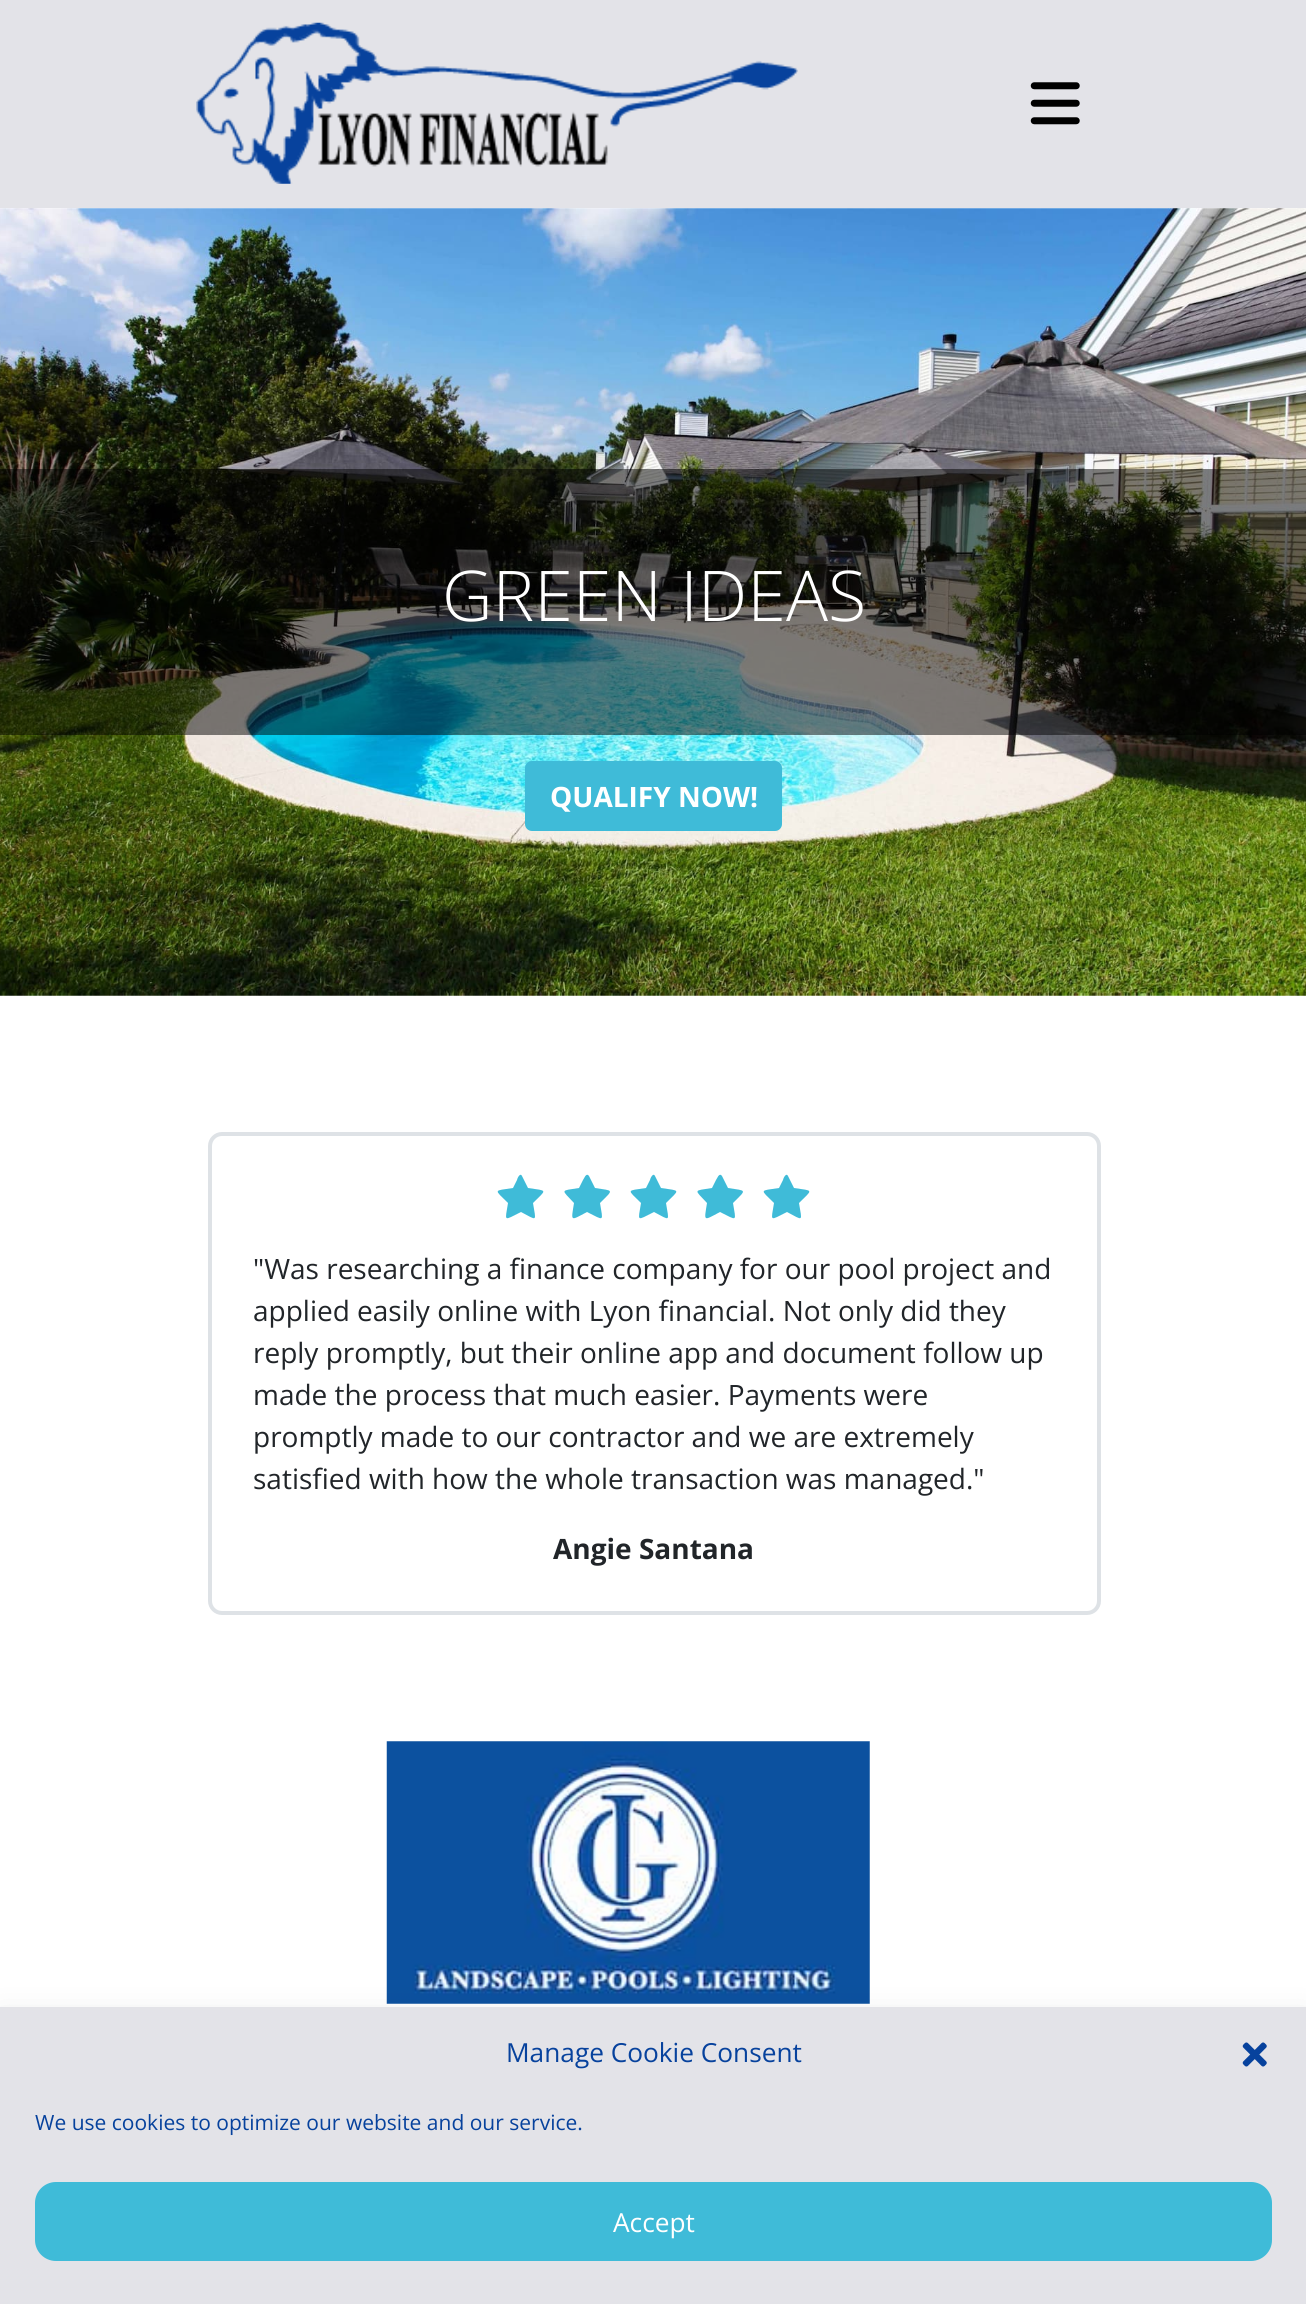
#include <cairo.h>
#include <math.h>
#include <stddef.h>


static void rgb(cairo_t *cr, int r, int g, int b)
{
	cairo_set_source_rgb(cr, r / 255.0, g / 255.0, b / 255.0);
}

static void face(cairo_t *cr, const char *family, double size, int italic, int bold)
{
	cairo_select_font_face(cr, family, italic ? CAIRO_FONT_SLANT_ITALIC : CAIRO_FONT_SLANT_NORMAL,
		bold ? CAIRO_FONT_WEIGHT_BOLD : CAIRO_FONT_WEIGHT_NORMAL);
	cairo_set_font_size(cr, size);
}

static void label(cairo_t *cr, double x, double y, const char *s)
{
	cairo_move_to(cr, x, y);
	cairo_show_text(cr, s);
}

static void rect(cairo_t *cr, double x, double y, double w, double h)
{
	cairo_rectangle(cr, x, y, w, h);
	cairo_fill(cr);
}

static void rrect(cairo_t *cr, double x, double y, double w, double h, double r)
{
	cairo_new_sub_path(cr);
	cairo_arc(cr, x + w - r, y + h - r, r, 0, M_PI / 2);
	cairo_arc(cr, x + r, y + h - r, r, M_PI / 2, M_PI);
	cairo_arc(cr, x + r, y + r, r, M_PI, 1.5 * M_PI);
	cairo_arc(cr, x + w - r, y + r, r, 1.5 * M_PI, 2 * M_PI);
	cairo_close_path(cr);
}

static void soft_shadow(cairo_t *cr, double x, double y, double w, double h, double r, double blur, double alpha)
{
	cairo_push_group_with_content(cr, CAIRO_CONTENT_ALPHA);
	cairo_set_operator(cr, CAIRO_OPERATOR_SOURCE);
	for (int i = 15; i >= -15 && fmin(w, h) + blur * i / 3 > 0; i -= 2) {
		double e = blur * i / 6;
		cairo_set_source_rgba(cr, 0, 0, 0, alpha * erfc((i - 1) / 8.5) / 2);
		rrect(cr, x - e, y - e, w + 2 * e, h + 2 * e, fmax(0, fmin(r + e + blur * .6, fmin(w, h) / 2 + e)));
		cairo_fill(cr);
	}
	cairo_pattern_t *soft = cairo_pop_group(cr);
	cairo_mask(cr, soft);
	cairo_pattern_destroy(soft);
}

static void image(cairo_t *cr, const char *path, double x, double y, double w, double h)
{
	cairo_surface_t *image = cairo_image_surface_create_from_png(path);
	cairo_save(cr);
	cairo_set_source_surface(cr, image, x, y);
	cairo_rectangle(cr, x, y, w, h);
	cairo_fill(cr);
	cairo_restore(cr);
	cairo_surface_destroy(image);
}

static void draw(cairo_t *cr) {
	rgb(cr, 255, 255, 255);
	cairo_paint(cr);
	rgb(cr, 227, 227, 232);
	rect(cr, 0, 0, 1306, 208);
	image(cr, "image0.png", 196, 22, 602, 162);
	image(cr, "image1.png", 1030, 82, 50, 43);
	image(cr, "image2.png", 0, 208, 1306, 788);
	cairo_set_source_rgba(cr, 0, 0, 0, 0.5);
	rect(cr, 0, 469, 1306, 266);
	face(cr, "Open Sans Light", 70, 0, 0);
	rgb(cr, 255, 255, 255);
	label(cr, 442, 621, "GREEN IDEAS");
	rgb(cr, 63, 187, 216);
	rrect(cr, 527, 763, 253, 66, 5);
	cairo_fill_preserve(cr);
	cairo_set_line_width(cr, 4);
	cairo_stroke(cr);
	face(cr, "Open Sans", 28, 0, 1);
	rgb(cr, 255, 255, 255);
	label(cr, 550, 807, "QUALIFY NOW!");
	rrect(cr, 210, 1134, 889, 479, 12);
	rgb(cr, 222, 226, 230);
	cairo_stroke(cr);
	rgb(cr, 63, 187, 216);
	cairo_new_path(cr);
	cairo_move_to(cr, 522, 1176);
	cairo_curve_to(cr, 520, 1172, 517, 1179, 517, 1180);
	cairo_line_to(cr, 513, 1188);
	cairo_curve_to(cr, 493, 1191, 494, 1189, 508, 1203);
	cairo_curve_to(cr, 505, 1222, 503, 1221, 521, 1212);
	cairo_curve_to(cr, 538, 1221, 536, 1222, 533, 1203);
	cairo_curve_to(cr, 547, 1189, 548, 1191, 528, 1188);
	cairo_close_path(cr);
	cairo_fill(cr);
	cairo_new_path(cr);
	cairo_move_to(cr, 589, 1176);
	cairo_curve_to(cr, 586, 1172, 584, 1179, 583, 1180);
	cairo_line_to(cr, 579, 1188);
	cairo_curve_to(cr, 560, 1191, 561, 1189, 574, 1203);
	cairo_curve_to(cr, 571, 1222, 570, 1221, 587, 1212);
	cairo_curve_to(cr, 605, 1221, 603, 1222, 600, 1203);
	cairo_curve_to(cr, 614, 1189, 614, 1191, 595, 1188);
	cairo_close_path(cr);
	cairo_fill(cr);
	cairo_new_path(cr);
	cairo_move_to(cr, 655, 1176);
	cairo_curve_to(cr, 653, 1172, 650, 1179, 650, 1180);
	cairo_line_to(cr, 646, 1188);
	cairo_curve_to(cr, 626, 1191, 627, 1189, 641, 1203);
	cairo_curve_to(cr, 638, 1222, 636, 1221, 654, 1212);
	cairo_curve_to(cr, 671, 1221, 669, 1222, 666, 1203);
	cairo_curve_to(cr, 680, 1189, 681, 1191, 661, 1188);
	cairo_close_path(cr);
	cairo_fill(cr);
	cairo_new_path(cr);
	cairo_move_to(cr, 722, 1176);
	cairo_curve_to(cr, 719, 1172, 717, 1179, 716, 1180);
	cairo_line_to(cr, 712, 1188);
	cairo_curve_to(cr, 693, 1191, 694, 1189, 707, 1203);
	cairo_curve_to(cr, 704, 1222, 703, 1221, 720, 1212);
	cairo_curve_to(cr, 738, 1221, 736, 1222, 733, 1203);
	cairo_curve_to(cr, 747, 1189, 747, 1191, 728, 1188);
	cairo_close_path(cr);
	cairo_fill(cr);
	cairo_new_path(cr);
	cairo_move_to(cr, 788, 1176);
	cairo_curve_to(cr, 786, 1172, 783, 1179, 783, 1180);
	cairo_line_to(cr, 779, 1188);
	cairo_curve_to(cr, 759, 1191, 760, 1189, 774, 1203);
	cairo_curve_to(cr, 771, 1222, 769, 1221, 787, 1212);
	cairo_curve_to(cr, 804, 1221, 802, 1222, 799, 1203);
	cairo_curve_to(cr, 813, 1189, 814, 1191, 794, 1188);
	cairo_close_path(cr);
	cairo_fill(cr);
	face(cr, "Open Sans", 28, 0, 0);
	rgb(cr, 33, 37, 41);
	label(cr, 253, 1279, "\"Was researching a finance company for our pool project and");
	label(cr, 253, 1321, "applied easily online with Lyon financial. Not only did they");
	label(cr, 253, 1363, "reply promptly, but their online app and document follow up");
	label(cr, 253, 1405, "made the process that much easier. Payments were");
	label(cr, 253, 1447, "promptly made to our contractor and we are extremely");
	label(cr, 253, 1489, "satisfied with how the whole transaction was managed.\"");
	face(cr, "Open Sans", 28, 0, 1);
	label(cr, 553, 1559, "Angie Santana");
	image(cr, "image3.png", 386, 1741, 484, 263);
	rgb(cr, 0, 0, 0);
	soft_shadow(cr, 0, 2025, 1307, 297, 0, 17.5, 0.19);
	rgb(cr, 227, 227, 232);
	rect(cr, 0, 2007, 1306, 297);
	face(cr, "Open Sans", 26.25, 0, 0);
	rgb(cr, 7, 66, 157);
	label(cr, 506, 2062, "Manage Cookie Consent");
	image(cr, "image4.png", 1242, 2042, 25, 25);
	face(cr, "Open Sans", 21, 0, 0);
	label(cr, 35, 2130, "We use cookies to optimize our website and our service.");
	rgb(cr, 63, 187, 216);
	rrect(cr, 36, 2183, 1235, 77, 20);
	cairo_fill_preserve(cr);
	cairo_set_line_width(cr, 2);
	cairo_stroke(cr);
	face(cr, "Open Sans", 26.25, 0, 0);
	rgb(cr, 255, 255, 255);
	label(cr, 613, 2232, "Accept");
}

int main(void) {
	cairo_surface_t *surface = cairo_image_surface_create(CAIRO_FORMAT_RGB24, 1306, 2304);
	cairo_t *cr = cairo_create(surface);
	cairo_font_options_t *options = cairo_font_options_create();
	cairo_font_options_set_hint_metrics(options, CAIRO_HINT_METRICS_OFF);
	cairo_font_options_set_hint_style(options, CAIRO_HINT_STYLE_NONE);
	cairo_set_font_options(cr, options);
	cairo_set_miter_limit(cr, 4);
	draw(cr);
	cairo_surface_write_to_png(surface, "render.png");
	cairo_font_options_destroy(options);
	cairo_destroy(cr);
	cairo_surface_destroy(surface);
	return 0;
}
